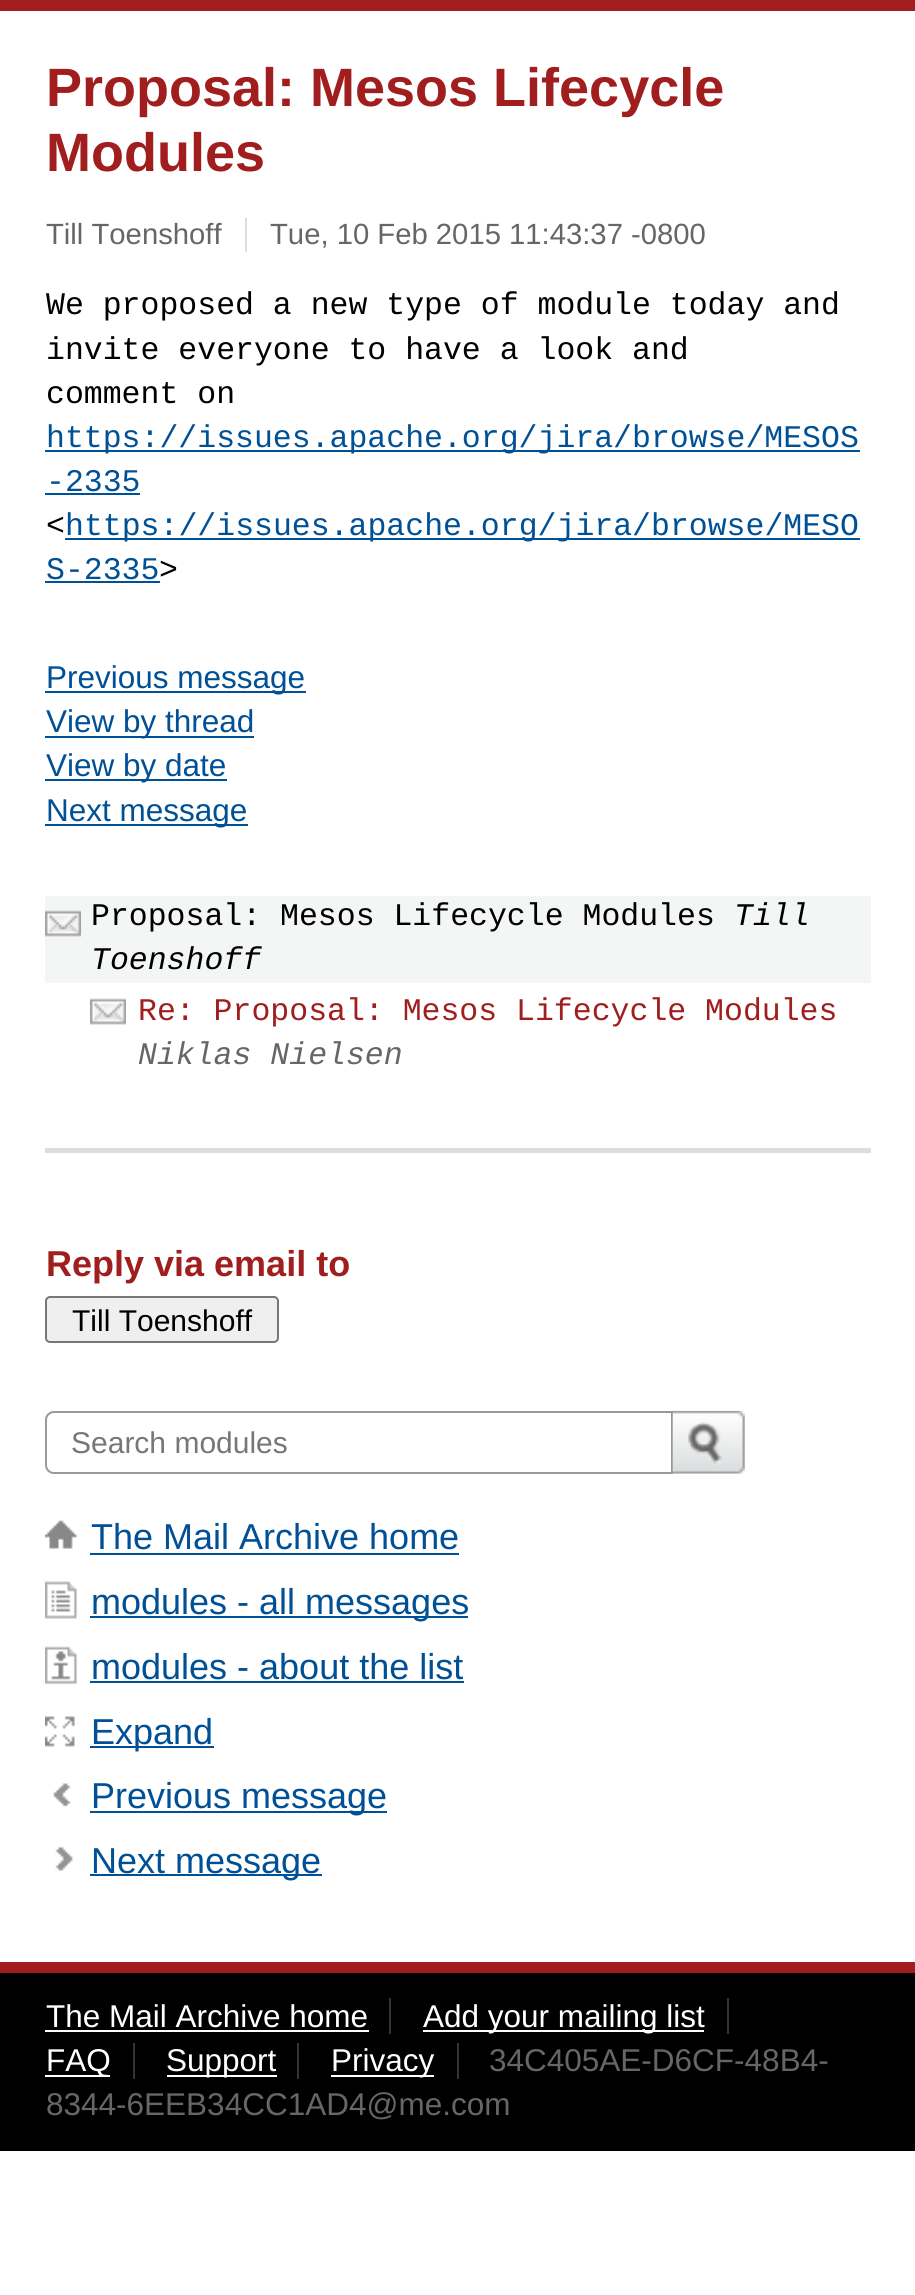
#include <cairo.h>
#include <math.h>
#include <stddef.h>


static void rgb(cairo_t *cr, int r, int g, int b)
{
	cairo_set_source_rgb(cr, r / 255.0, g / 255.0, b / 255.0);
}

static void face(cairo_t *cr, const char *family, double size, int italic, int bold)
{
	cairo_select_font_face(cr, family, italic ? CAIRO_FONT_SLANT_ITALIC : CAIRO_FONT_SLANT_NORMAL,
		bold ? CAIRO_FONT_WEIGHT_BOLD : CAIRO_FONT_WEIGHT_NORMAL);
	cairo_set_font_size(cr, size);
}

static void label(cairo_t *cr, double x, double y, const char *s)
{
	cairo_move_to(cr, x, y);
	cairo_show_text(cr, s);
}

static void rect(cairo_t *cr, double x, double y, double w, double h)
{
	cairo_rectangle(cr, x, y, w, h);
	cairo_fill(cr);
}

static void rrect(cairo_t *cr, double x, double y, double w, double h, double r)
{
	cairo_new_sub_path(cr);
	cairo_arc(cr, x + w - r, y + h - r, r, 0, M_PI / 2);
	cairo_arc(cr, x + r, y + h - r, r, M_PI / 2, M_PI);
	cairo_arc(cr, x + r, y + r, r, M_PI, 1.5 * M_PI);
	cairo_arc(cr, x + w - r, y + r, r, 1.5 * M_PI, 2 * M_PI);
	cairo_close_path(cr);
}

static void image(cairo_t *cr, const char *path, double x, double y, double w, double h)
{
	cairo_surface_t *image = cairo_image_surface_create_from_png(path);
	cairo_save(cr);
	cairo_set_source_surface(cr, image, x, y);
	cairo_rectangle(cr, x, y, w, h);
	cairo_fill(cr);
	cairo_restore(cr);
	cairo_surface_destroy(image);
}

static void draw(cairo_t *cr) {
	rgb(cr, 255, 255, 255);
	cairo_paint(cr);
	rgb(cr, 160, 30, 30);
	rect(cr, 0, 0, 915, 11);
	face(cr, "Liberation Sans", 54, 0, 1);
	label(cr, 46, 106, "Proposal: Mesos Lifecycle");
	label(cr, 46, 171, "Modules");
	face(cr, "Liberation Sans", 29.25, 0, 0);
	rgb(cr, 102, 102, 102);
	label(cr, 46, 244, "Till Toenshoff");
	rgb(cr, 221, 221, 221);
	rect(cr, 245, 218, 2, 34);
	rgb(cr, 102, 102, 102);
	label(cr, 270, 244, "Tue, 10 Feb 2015 11:43:37 -0800");
	face(cr, "Liberation Mono", 31.5, 0, 0);
	rgb(cr, 0, 0, 0);
	label(cr, 46, 314, "We proposed a new type of module today and");
	label(cr, 46, 359, "invite everyone to have a look and");
	label(cr, 46, 403, "comment on");
	rgb(cr, 0, 80, 150);
	rect(cr, 45, 450, 815, 2);
	label(cr, 46, 447, "https://issues.apache.org/jira/browse/MESOS");
	label(cr, 46, 491, "-2335");
	rect(cr, 45, 493, 95, 2);
	rgb(cr, 0, 0, 0);
	label(cr, 46, 535, "<");
	rgb(cr, 0, 80, 150);
	rect(cr, 65, 538, 795, 2);
	label(cr, 65, 535, "https://issues.apache.org/jira/browse/MESO");
	label(cr, 46, 579, "S-2335");
	rect(cr, 45, 581, 115, 2);
	rgb(cr, 0, 0, 0);
	label(cr, 159, 579, ">");
	rgb(cr, 0, 80, 150);
	rect(cr, 45, 691, 261, 2);
	face(cr, "Liberation Sans", 31.5, 0, 0);
	label(cr, 46, 688, "Previous message");
	rect(cr, 45, 736, 209, 2);
	label(cr, 46, 732, "View by thread");
	rect(cr, 45, 779, 182, 2);
	label(cr, 46, 776, "View by date");
	rect(cr, 45, 824, 203, 2);
	label(cr, 46, 821, "Next message");
	rgb(cr, 244, 245, 245);
	rect(cr, 45, 896, 826, 87);
	image(cr, "image0.png", 45, 910, 36, 27);
	face(cr, "Liberation Mono", 31.5, 0, 0);
	rgb(cr, 0, 0, 0);
	label(cr, 91, 925, "Proposal: Mesos Lifecycle Modules");
	face(cr, "Liberation Mono", 31.5, 1, 0);
	label(cr, 734, 925, "Till");
	label(cr, 91, 969, "Toenshoff");
	image(cr, "image1.png", 90, 998, 36, 27);
	face(cr, "Liberation Mono", 31.5, 0, 0);
	rgb(cr, 160, 30, 30);
	label(cr, 138, 1020, "Re: Proposal: Mesos Lifecycle Modules");
	face(cr, "Liberation Mono", 31.5, 1, 0);
	rgb(cr, 102, 102, 102);
	label(cr, 138, 1064, "Niklas Nielsen");
	rgb(cr, 221, 221, 221);
	rect(cr, 45, 1148, 826, 5);
	face(cr, "Liberation Sans", 36, 0, 1);
	rgb(cr, 160, 30, 30);
	label(cr, 46, 1276, "Reply via email to");
	rgb(cr, 239, 239, 239);
	rrect(cr, 46, 1297, 232, 45, 4);
	cairo_fill_preserve(cr);
	rgb(cr, 118, 118, 118);
	cairo_stroke(cr);
	face(cr, "Liberation Sans", 30, 0, 0);
	rgb(cr, 0, 0, 0);
	label(cr, 72, 1331, "Till Toenshoff");
	cairo_new_path(cr);
	cairo_move_to(cr, 54, 1412);
	cairo_line_to(cr, 672, 1412);
	cairo_line_to(cr, 672, 1473);
	cairo_line_to(cr, 54, 1473);
	cairo_curve_to(cr, 49.5, 1473, 46, 1469.5, 46, 1465);
	cairo_line_to(cr, 46, 1420);
	cairo_curve_to(cr, 46, 1415.5, 49.5, 1412, 54, 1412);
	cairo_close_path(cr);
	rgb(cr, 153, 153, 153);
	cairo_stroke(cr);
	rgb(cr, 119, 119, 119);
	label(cr, 71, 1453, "Search modules");
	image(cr, "image2.png", 672, 1410, 73, 64);
	image(cr, "image3.png", 45, 1520, 33, 29);
	face(cr, "Liberation Sans", 36, 0, 0);
	rgb(cr, 0, 80, 150);
	label(cr, 91, 1549, "The Mail Archive home");
	rect(cr, 90, 1553, 369, 2);
	image(cr, "image4.png", 45, 1581, 33, 38);
	rect(cr, 90, 1616, 378, 2);
	label(cr, 91, 1614, "modules - all messages");
	image(cr, "image5.png", 45, 1646, 33, 39);
	label(cr, 91, 1679, "modules - about the list");
	rect(cr, 90, 1681, 374, 2);
	image(cr, "image6.png", 45, 1716, 30, 31);
	rect(cr, 90, 1746, 124, 2);
	label(cr, 91, 1744, "Expand");
	image(cr, "image7.png", 53, 1783, 18, 24);
	rect(cr, 90, 1811, 297, 2);
	label(cr, 91, 1808, "Previous message");
	image(cr, "image8.png", 55, 1846, 18, 25);
	rect(cr, 90, 1874, 232, 2);
	label(cr, 91, 1873, "Next message");
	rgb(cr, 0, 0, 0);
	rect(cr, 0, 1973, 915, 178);
	rgb(cr, 160, 30, 30);
	rect(cr, 0, 1962, 915, 11);
	face(cr, "Liberation Sans", 31.5, 0, 0);
	rgb(cr, 255, 255, 255);
	label(cr, 46, 2027, "The Mail Archive home");
	rgb(cr, 51, 51, 51);
	rect(cr, 389, 1998, 2, 36);
	rgb(cr, 255, 255, 255);
	rect(cr, 45, 2030, 324, 2);
	rect(cr, 423, 2030, 281, 2);
	label(cr, 423, 2027, "Add your mailing list");
	rgb(cr, 51, 51, 51);
	rect(cr, 727, 1998, 2, 36);
	rgb(cr, 255, 255, 255);
	rect(cr, 45, 2075, 65, 2);
	label(cr, 46, 2071, "FAQ");
	rgb(cr, 51, 51, 51);
	rect(cr, 133, 2043, 2, 36);
	rgb(cr, 255, 255, 255);
	rect(cr, 167, 2075, 110, 2);
	label(cr, 166, 2071, "Support");
	rgb(cr, 51, 51, 51);
	rect(cr, 297, 2043, 2, 36);
	rgb(cr, 255, 255, 255);
	rect(cr, 331, 2075, 103, 2);
	label(cr, 331, 2071, "Privacy");
	rgb(cr, 51, 51, 51);
	rect(cr, 457, 2043, 2, 36);
	rgb(cr, 102, 102, 102);
	label(cr, 489, 2071, "34C405AE-D6CF-48B4-");
	label(cr, 46, 2115, "8344-6EEB34CC1AD4@me.com");
}

int main(void) {
	cairo_surface_t *surface = cairo_image_surface_create(CAIRO_FORMAT_RGB24, 915, 2295);
	cairo_t *cr = cairo_create(surface);
	cairo_font_options_t *options = cairo_font_options_create();
	cairo_font_options_set_hint_metrics(options, CAIRO_HINT_METRICS_OFF);
	cairo_font_options_set_hint_style(options, CAIRO_HINT_STYLE_NONE);
	cairo_set_font_options(cr, options);
	cairo_set_miter_limit(cr, 4);
	draw(cr);
	cairo_surface_write_to_png(surface, "render.png");
	cairo_font_options_destroy(options);
	cairo_destroy(cr);
	cairo_surface_destroy(surface);
	return 0;
}
